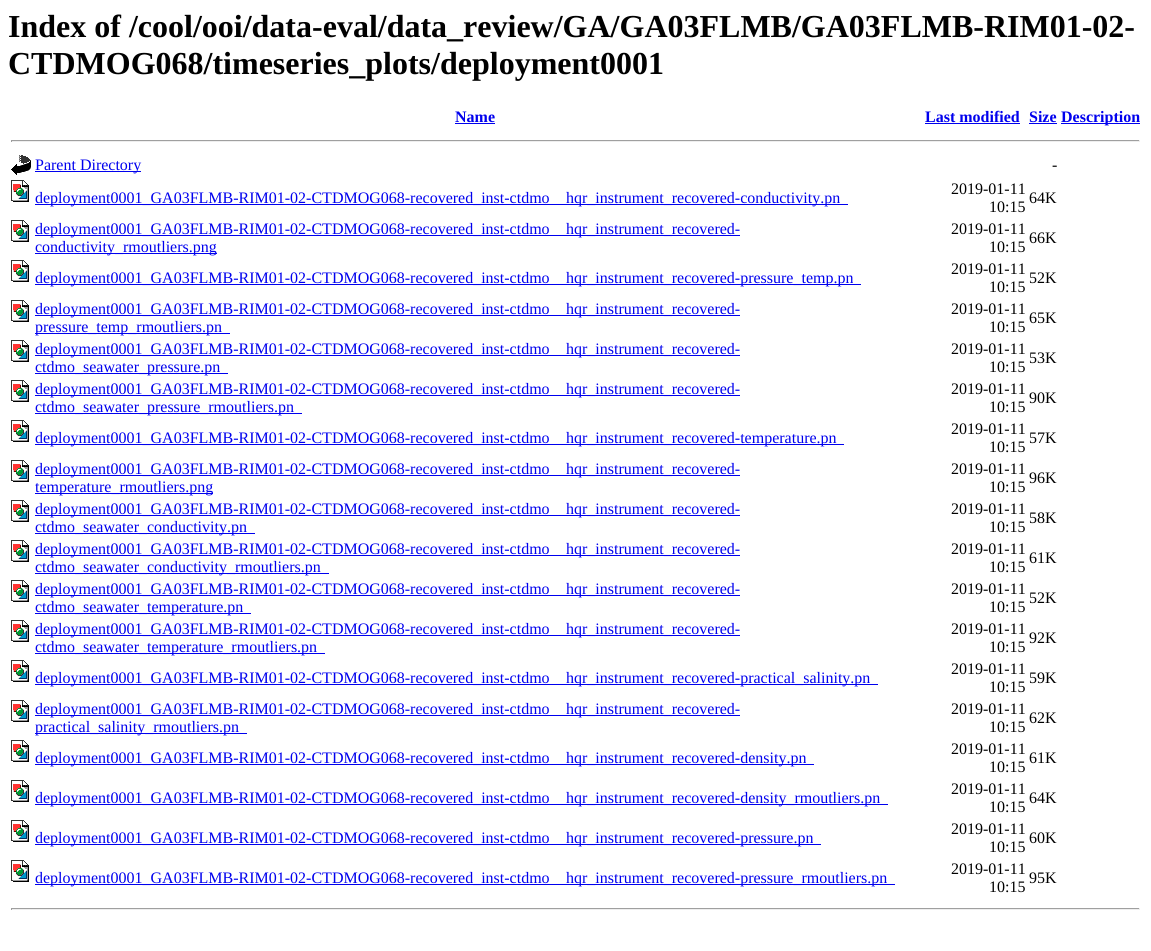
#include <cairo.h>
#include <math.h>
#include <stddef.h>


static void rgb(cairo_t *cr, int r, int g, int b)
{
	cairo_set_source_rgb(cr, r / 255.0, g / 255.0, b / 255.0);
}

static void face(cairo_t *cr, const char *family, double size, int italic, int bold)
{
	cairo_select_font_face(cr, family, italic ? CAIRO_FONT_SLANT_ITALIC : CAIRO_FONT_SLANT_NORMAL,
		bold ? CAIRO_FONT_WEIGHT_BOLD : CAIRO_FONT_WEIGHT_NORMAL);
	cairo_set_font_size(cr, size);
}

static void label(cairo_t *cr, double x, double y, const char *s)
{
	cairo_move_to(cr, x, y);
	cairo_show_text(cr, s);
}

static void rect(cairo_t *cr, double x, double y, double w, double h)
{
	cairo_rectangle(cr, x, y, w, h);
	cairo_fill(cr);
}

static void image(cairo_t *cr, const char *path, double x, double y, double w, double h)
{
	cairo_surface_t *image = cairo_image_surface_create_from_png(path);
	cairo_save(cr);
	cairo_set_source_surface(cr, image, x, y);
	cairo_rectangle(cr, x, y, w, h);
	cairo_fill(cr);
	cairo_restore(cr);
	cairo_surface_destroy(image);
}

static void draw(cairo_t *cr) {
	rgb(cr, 255, 255, 255);
	cairo_paint(cr);
	face(cr, "Liberation Serif", 32, 0, 1);
	rgb(cr, 0, 0, 0);
	label(cr, 8, 37, "Index of /cool/ooi/data-eval/data_review/GA/GA03FLMB/GA03FLMB-RIM01-02-");
	label(cr, 8, 74, "CTDMOG068/timeseries_plots/deployment0001");
	face(cr, "Liberation Serif", 16, 0, 1);
	rgb(cr, 0, 0, 238);
	label(cr, 455, 122, "Name");
	rect(cr, 455, 123, 40, 1);
	label(cr, 925, 122, "Last modified");
	rect(cr, 925, 123, 95, 1);
	label(cr, 1029, 122, "Size");
	rect(cr, 1029, 123, 28, 1);
	rect(cr, 1061, 123, 79, 1);
	label(cr, 1061, 122, "Description");
	rgb(cr, 159, 159, 159);
	rect(cr, 11, 140, 1129, 1);
	rgb(cr, 238, 238, 238);
	rect(cr, 1139, 140, 1, 2);
	rect(cr, 11, 141, 1129, 1);
	rgb(cr, 159, 159, 159);
	rect(cr, 11, 140, 1, 2);
	image(cr, "image0.png", 11, 155, 20, 20);
	rgb(cr, 0, 0, 238);
	rect(cr, 35, 171, 106, 1);
	face(cr, "Liberation Serif", 16, 0, 0);
	label(cr, 35, 170, "Parent Directory");
	rgb(cr, 0, 0, 0);
	label(cr, 1052, 170, "-");
	image(cr, "image1.png", 11, 180, 18, 22);
	rgb(cr, 0, 0, 238);
	rect(cr, 35, 204, 813, 1);
	label(cr, 35, 203, "deployment0001_GA03FLMB-RIM01-02-CTDMOG068-recovered_inst-ctdmo");
	label(cr, 566, 203, "hqr_instrument_recovered-conductivity.pn");
	rgb(cr, 0, 0, 0);
	label(cr, 951, 194, "2019-01-11");
	label(cr, 989, 212, "10:15");
	label(cr, 1029, 203, "64K");
	image(cr, "image1.png", 11, 220, 18, 22);
	rgb(cr, 0, 0, 238);
	rect(cr, 35, 235, 705, 1);
	label(cr, 35, 234, "deployment0001_GA03FLMB-RIM01-02-CTDMOG068-recovered_inst-ctdmo");
	label(cr, 566, 234, "hqr_instrument_recovered-");
	rect(cr, 35, 253, 182, 1);
	label(cr, 35, 252, "conductivity_rmoutliers.png");
	rgb(cr, 0, 0, 0);
	label(cr, 951, 234, "2019-01-11");
	label(cr, 989, 252, "10:15");
	label(cr, 1029, 243, "66K");
	image(cr, "image1.png", 11, 260, 18, 22);
	rgb(cr, 0, 0, 238);
	rect(cr, 35, 284, 826, 1);
	label(cr, 35, 283, "deployment0001_GA03FLMB-RIM01-02-CTDMOG068-recovered_inst-ctdmo");
	label(cr, 566, 283, "hqr_instrument_recovered-pressure_temp.pn");
	rgb(cr, 0, 0, 0);
	label(cr, 951, 274, "2019-01-11");
	label(cr, 989, 292, "10:15");
	label(cr, 1029, 283, "52K");
	image(cr, "image1.png", 11, 300, 18, 22);
	rgb(cr, 0, 0, 238);
	rect(cr, 35, 315, 705, 1);
	label(cr, 35, 314, "deployment0001_GA03FLMB-RIM01-02-CTDMOG068-recovered_inst-ctdmo");
	label(cr, 566, 314, "hqr_instrument_recovered-");
	rect(cr, 35, 333, 195, 1);
	label(cr, 35, 332, "pressure_temp_rmoutliers.pn");
	rgb(cr, 0, 0, 0);
	label(cr, 951, 314, "2019-01-11");
	label(cr, 989, 332, "10:15");
	label(cr, 1029, 323, "65K");
	image(cr, "image1.png", 11, 340, 18, 22);
	rgb(cr, 0, 0, 238);
	rect(cr, 35, 355, 705, 1);
	label(cr, 35, 354, "deployment0001_GA03FLMB-RIM01-02-CTDMOG068-recovered_inst-ctdmo");
	label(cr, 566, 354, "hqr_instrument_recovered-");
	rect(cr, 35, 373, 193, 1);
	label(cr, 35, 372, "ctdmo_seawater_pressure.pn");
	rgb(cr, 0, 0, 0);
	label(cr, 951, 354, "2019-01-11");
	label(cr, 989, 372, "10:15");
	label(cr, 1029, 363, "53K");
	image(cr, "image1.png", 11, 380, 18, 22);
	rgb(cr, 0, 0, 238);
	rect(cr, 35, 395, 705, 1);
	label(cr, 35, 394, "deployment0001_GA03FLMB-RIM01-02-CTDMOG068-recovered_inst-ctdmo");
	label(cr, 566, 394, "hqr_instrument_recovered-");
	rect(cr, 35, 413, 267, 1);
	label(cr, 35, 412, "ctdmo_seawater_pressure_rmoutliers.pn");
	rgb(cr, 0, 0, 0);
	label(cr, 951, 394, "2019-01-11");
	label(cr, 989, 412, "10:15");
	label(cr, 1029, 403, "90K");
	image(cr, "image1.png", 11, 420, 18, 22);
	rgb(cr, 0, 0, 238);
	rect(cr, 35, 444, 809, 1);
	label(cr, 35, 443, "deployment0001_GA03FLMB-RIM01-02-CTDMOG068-recovered_inst-ctdmo");
	label(cr, 566, 443, "hqr_instrument_recovered-temperature.pn");
	rgb(cr, 0, 0, 0);
	label(cr, 951, 434, "2019-01-11");
	label(cr, 989, 452, "10:15");
	label(cr, 1029, 443, "57K");
	image(cr, "image1.png", 11, 460, 18, 22);
	rgb(cr, 0, 0, 238);
	rect(cr, 35, 475, 705, 1);
	label(cr, 35, 474, "deployment0001_GA03FLMB-RIM01-02-CTDMOG068-recovered_inst-ctdmo");
	label(cr, 566, 474, "hqr_instrument_recovered-");
	rect(cr, 35, 493, 178, 1);
	label(cr, 35, 492, "temperature_rmoutliers.png");
	rgb(cr, 0, 0, 0);
	label(cr, 951, 474, "2019-01-11");
	label(cr, 989, 492, "10:15");
	label(cr, 1029, 483, "96K");
	image(cr, "image1.png", 11, 500, 18, 22);
	rgb(cr, 0, 0, 238);
	rect(cr, 35, 515, 705, 1);
	label(cr, 35, 514, "deployment0001_GA03FLMB-RIM01-02-CTDMOG068-recovered_inst-ctdmo");
	label(cr, 566, 514, "hqr_instrument_recovered-");
	rect(cr, 35, 533, 220, 1);
	label(cr, 35, 532, "ctdmo_seawater_conductivity.pn");
	rgb(cr, 0, 0, 0);
	label(cr, 951, 514, "2019-01-11");
	label(cr, 989, 532, "10:15");
	label(cr, 1029, 523, "58K");
	image(cr, "image1.png", 11, 540, 18, 22);
	rgb(cr, 0, 0, 238);
	rect(cr, 35, 555, 705, 1);
	label(cr, 35, 554, "deployment0001_GA03FLMB-RIM01-02-CTDMOG068-recovered_inst-ctdmo");
	label(cr, 566, 554, "hqr_instrument_recovered-");
	rect(cr, 35, 573, 294, 1);
	label(cr, 35, 572, "ctdmo_seawater_conductivity_rmoutliers.pn");
	rgb(cr, 0, 0, 0);
	label(cr, 951, 554, "2019-01-11");
	label(cr, 989, 572, "10:15");
	label(cr, 1029, 563, "61K");
	image(cr, "image1.png", 11, 580, 18, 22);
	rgb(cr, 0, 0, 238);
	rect(cr, 35, 595, 705, 1);
	label(cr, 35, 594, "deployment0001_GA03FLMB-RIM01-02-CTDMOG068-recovered_inst-ctdmo");
	label(cr, 566, 594, "hqr_instrument_recovered-");
	rect(cr, 35, 613, 216, 1);
	label(cr, 35, 612, "ctdmo_seawater_temperature.pn");
	rgb(cr, 0, 0, 0);
	label(cr, 951, 594, "2019-01-11");
	label(cr, 989, 612, "10:15");
	label(cr, 1029, 603, "52K");
	image(cr, "image1.png", 11, 620, 18, 22);
	rgb(cr, 0, 0, 238);
	rect(cr, 35, 635, 705, 1);
	label(cr, 35, 634, "deployment0001_GA03FLMB-RIM01-02-CTDMOG068-recovered_inst-ctdmo");
	label(cr, 566, 634, "hqr_instrument_recovered-");
	rect(cr, 35, 653, 290, 1);
	label(cr, 35, 652, "ctdmo_seawater_temperature_rmoutliers.pn");
	rgb(cr, 0, 0, 0);
	label(cr, 951, 634, "2019-01-11");
	label(cr, 989, 652, "10:15");
	label(cr, 1029, 643, "92K");
	image(cr, "image1.png", 11, 660, 18, 22);
	rgb(cr, 0, 0, 238);
	rect(cr, 35, 684, 843, 1);
	label(cr, 35, 683, "deployment0001_GA03FLMB-RIM01-02-CTDMOG068-recovered_inst-ctdmo");
	label(cr, 566, 683, "hqr_instrument_recovered-practical_salinity.pn");
	rgb(cr, 0, 0, 0);
	label(cr, 951, 674, "2019-01-11");
	label(cr, 989, 692, "10:15");
	label(cr, 1029, 683, "59K");
	image(cr, "image1.png", 11, 700, 18, 22);
	rgb(cr, 0, 0, 238);
	rect(cr, 35, 715, 705, 1);
	label(cr, 35, 714, "deployment0001_GA03FLMB-RIM01-02-CTDMOG068-recovered_inst-ctdmo");
	label(cr, 566, 714, "hqr_instrument_recovered-");
	rect(cr, 35, 733, 212, 1);
	label(cr, 35, 732, "practical_salinity_rmoutliers.pn");
	rgb(cr, 0, 0, 0);
	label(cr, 951, 714, "2019-01-11");
	label(cr, 989, 732, "10:15");
	label(cr, 1029, 723, "62K");
	image(cr, "image1.png", 11, 740, 18, 22);
	rgb(cr, 0, 0, 238);
	rect(cr, 35, 764, 779, 1);
	label(cr, 35, 763, "deployment0001_GA03FLMB-RIM01-02-CTDMOG068-recovered_inst-ctdmo");
	label(cr, 566, 763, "hqr_instrument_recovered-density.pn");
	rgb(cr, 0, 0, 0);
	label(cr, 951, 754, "2019-01-11");
	label(cr, 989, 772, "10:15");
	label(cr, 1029, 763, "61K");
	image(cr, "image1.png", 11, 780, 18, 22);
	rgb(cr, 0, 0, 238);
	rect(cr, 35, 804, 853, 1);
	label(cr, 35, 803, "deployment0001_GA03FLMB-RIM01-02-CTDMOG068-recovered_inst-ctdmo");
	label(cr, 566, 803, "hqr_instrument_recovered-density_rmoutliers.pn");
	rgb(cr, 0, 0, 0);
	label(cr, 951, 794, "2019-01-11");
	label(cr, 989, 812, "10:15");
	label(cr, 1029, 803, "64K");
	image(cr, "image1.png", 11, 820, 18, 22);
	rgb(cr, 0, 0, 238);
	rect(cr, 35, 844, 786, 1);
	label(cr, 35, 843, "deployment0001_GA03FLMB-RIM01-02-CTDMOG068-recovered_inst-ctdmo");
	label(cr, 566, 843, "hqr_instrument_recovered-pressure.pn");
	rgb(cr, 0, 0, 0);
	label(cr, 951, 834, "2019-01-11");
	label(cr, 989, 852, "10:15");
	label(cr, 1029, 843, "60K");
	image(cr, "image1.png", 11, 860, 18, 22);
	rgb(cr, 0, 0, 238);
	rect(cr, 35, 884, 860, 1);
	label(cr, 35, 883, "deployment0001_GA03FLMB-RIM01-02-CTDMOG068-recovered_inst-ctdmo");
	label(cr, 566, 883, "hqr_instrument_recovered-pressure_rmoutliers.pn");
	rgb(cr, 0, 0, 0);
	label(cr, 951, 874, "2019-01-11");
	label(cr, 989, 892, "10:15");
	label(cr, 1029, 883, "95K");
	rgb(cr, 159, 159, 159);
	rect(cr, 11, 908, 1129, 1);
	rgb(cr, 238, 238, 238);
	rect(cr, 1139, 908, 1, 2);
	rect(cr, 11, 909, 1129, 1);
	rgb(cr, 159, 159, 159);
	rect(cr, 11, 908, 1, 2);
}

int main(void) {
	cairo_surface_t *surface = cairo_image_surface_create(CAIRO_FORMAT_RGB24, 1151, 951);
	cairo_t *cr = cairo_create(surface);
	cairo_font_options_t *options = cairo_font_options_create();
	cairo_font_options_set_hint_metrics(options, CAIRO_HINT_METRICS_OFF);
	cairo_font_options_set_hint_style(options, CAIRO_HINT_STYLE_NONE);
	cairo_set_font_options(cr, options);
	cairo_set_miter_limit(cr, 4);
	draw(cr);
	cairo_surface_write_to_png(surface, "render.png");
	cairo_font_options_destroy(options);
	cairo_destroy(cr);
	cairo_surface_destroy(surface);
	return 0;
}
